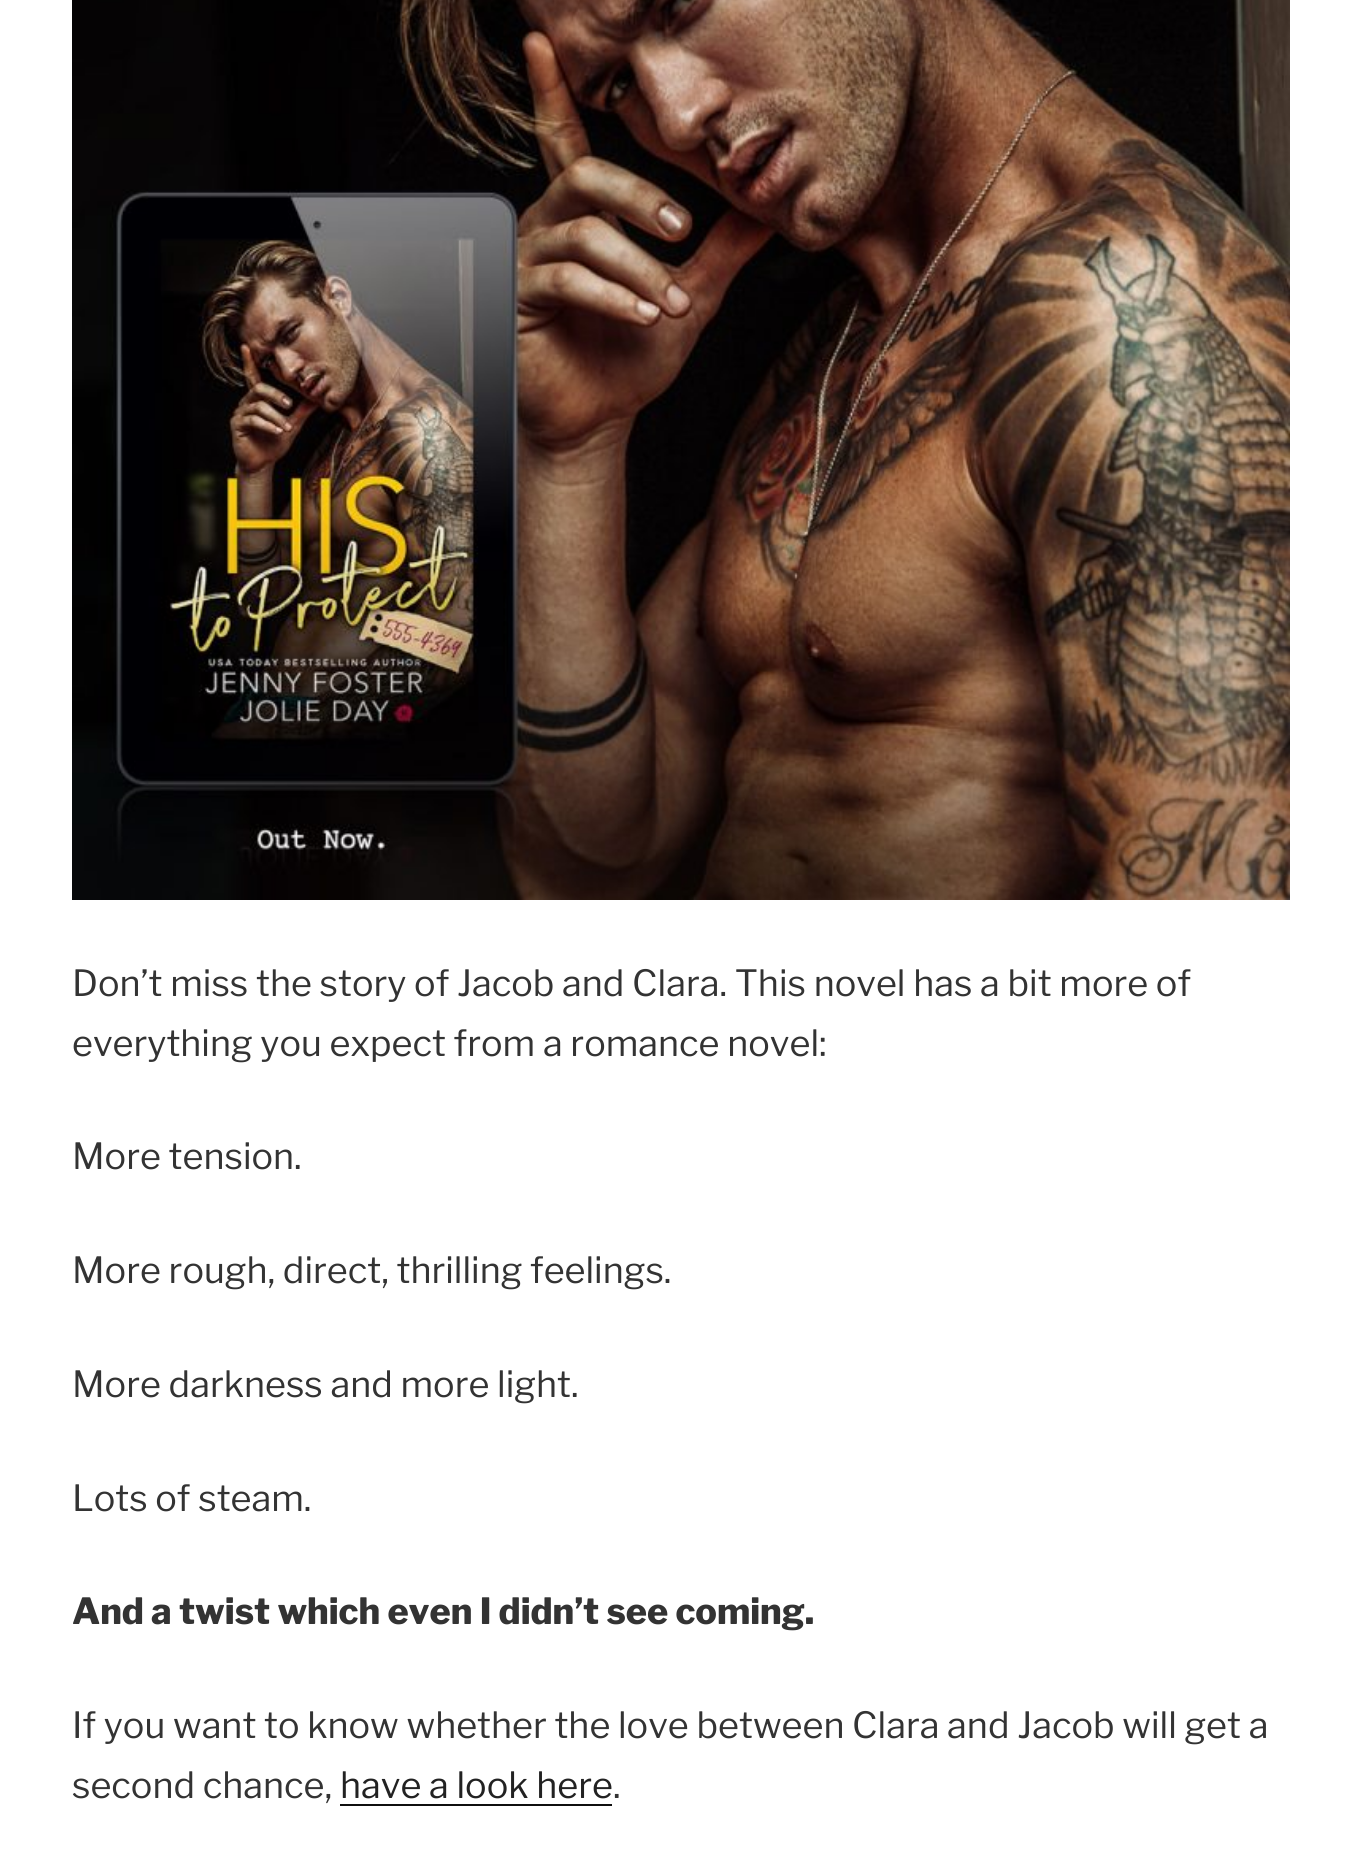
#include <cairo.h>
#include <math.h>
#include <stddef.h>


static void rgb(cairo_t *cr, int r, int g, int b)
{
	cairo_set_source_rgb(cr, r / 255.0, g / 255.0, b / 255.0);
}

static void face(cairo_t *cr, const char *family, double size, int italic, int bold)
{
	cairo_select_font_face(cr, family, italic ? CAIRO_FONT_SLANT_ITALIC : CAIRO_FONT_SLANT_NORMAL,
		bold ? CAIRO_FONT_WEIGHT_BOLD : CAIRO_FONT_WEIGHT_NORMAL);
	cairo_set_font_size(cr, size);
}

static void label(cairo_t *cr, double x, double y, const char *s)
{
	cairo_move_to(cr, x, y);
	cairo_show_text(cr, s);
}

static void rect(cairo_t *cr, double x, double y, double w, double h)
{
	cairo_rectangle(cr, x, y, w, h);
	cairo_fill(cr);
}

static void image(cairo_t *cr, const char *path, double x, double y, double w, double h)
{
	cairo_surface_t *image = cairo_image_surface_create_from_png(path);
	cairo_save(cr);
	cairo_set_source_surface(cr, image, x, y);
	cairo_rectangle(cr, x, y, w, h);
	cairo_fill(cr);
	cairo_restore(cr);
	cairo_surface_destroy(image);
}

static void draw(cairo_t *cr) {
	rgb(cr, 255, 255, 255);
	cairo_paint(cr);
	image(cr, "image0.png", 72, 0, 1218, 900);
	face(cr, "Libre Franklin", 36, 0, 0);
	rgb(cr, 51, 51, 51);
	label(cr, 72, 996, "Don’t miss the story of Jacob and Clara. This novel has a bit more of");
	label(cr, 72, 1056, "everything you expect from a romance novel:");
	label(cr, 72, 1169, "More tension.");
	label(cr, 72, 1283, "More rough, direct, thrilling feelings.");
	label(cr, 72, 1397, "More darkness and more light.");
	label(cr, 72, 1511, "Lots of steam.");
	face(cr, "Libre Franklin ExtraBold", 36, 0, 0);
	label(cr, 72, 1624, "And a twist which even I didn’t see coming.");
	face(cr, "Libre Franklin", 36, 0, 0);
	label(cr, 72, 1738, "If you want to know whether the love between Clara and Jacob will get a");
	label(cr, 72, 1798, "second chance,");
	rgb(cr, 34, 34, 34);
	label(cr, 340, 1798, "have a look here");
	rgb(cr, 15, 15, 15);
	rect(cr, 340, 1804, 272, 2);
	rgb(cr, 51, 51, 51);
	label(cr, 613, 1798, ".");
}

int main(void) {
	cairo_surface_t *surface = cairo_image_surface_create(CAIRO_FORMAT_RGB24, 1361, 1875);
	cairo_t *cr = cairo_create(surface);
	cairo_font_options_t *options = cairo_font_options_create();
	cairo_font_options_set_hint_metrics(options, CAIRO_HINT_METRICS_OFF);
	cairo_font_options_set_hint_style(options, CAIRO_HINT_STYLE_NONE);
	cairo_set_font_options(cr, options);
	cairo_set_miter_limit(cr, 4);
	draw(cr);
	cairo_surface_write_to_png(surface, "render.png");
	cairo_font_options_destroy(options);
	cairo_destroy(cr);
	cairo_surface_destroy(surface);
	return 0;
}
